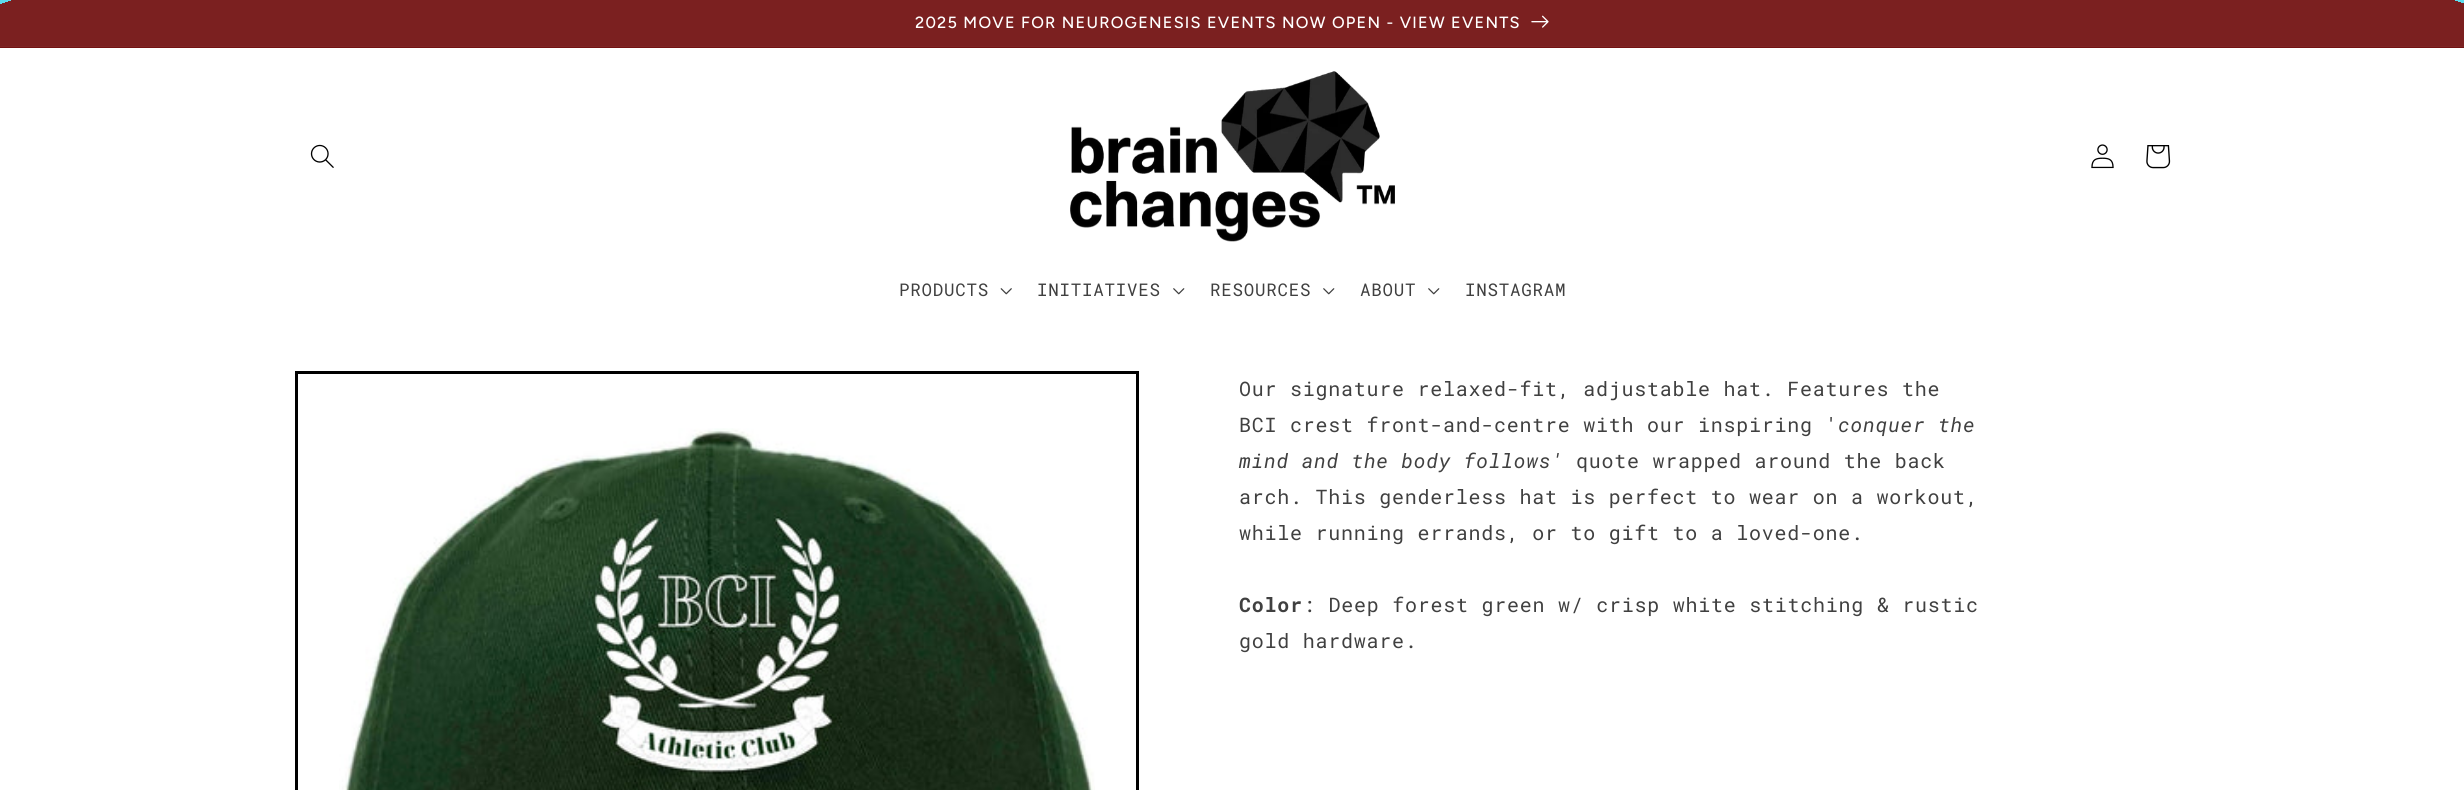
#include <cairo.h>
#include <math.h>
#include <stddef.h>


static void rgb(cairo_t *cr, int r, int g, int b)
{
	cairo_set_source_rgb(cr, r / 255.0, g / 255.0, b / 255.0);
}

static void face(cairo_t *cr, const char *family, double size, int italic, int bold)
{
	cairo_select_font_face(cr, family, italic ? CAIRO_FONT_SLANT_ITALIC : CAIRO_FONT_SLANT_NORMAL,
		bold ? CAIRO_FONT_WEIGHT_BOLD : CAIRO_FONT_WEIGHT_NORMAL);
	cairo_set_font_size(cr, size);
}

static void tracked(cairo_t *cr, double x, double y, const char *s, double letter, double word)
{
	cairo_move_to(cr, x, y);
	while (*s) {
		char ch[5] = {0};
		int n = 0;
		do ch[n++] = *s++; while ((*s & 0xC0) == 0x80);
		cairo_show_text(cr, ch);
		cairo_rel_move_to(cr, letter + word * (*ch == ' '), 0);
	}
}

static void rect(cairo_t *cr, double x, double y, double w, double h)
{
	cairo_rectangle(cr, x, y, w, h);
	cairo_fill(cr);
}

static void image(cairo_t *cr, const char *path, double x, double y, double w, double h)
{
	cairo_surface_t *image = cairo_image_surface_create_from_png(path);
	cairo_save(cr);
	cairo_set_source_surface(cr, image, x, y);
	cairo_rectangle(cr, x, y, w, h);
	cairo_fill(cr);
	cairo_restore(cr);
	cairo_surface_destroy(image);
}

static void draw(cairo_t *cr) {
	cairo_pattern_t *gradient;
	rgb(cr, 255, 255, 255);
	cairo_paint(cr);
	gradient = cairo_pattern_create_radial(0, 0, 0, 0, 0, 1);
	cairo_pattern_set_matrix(gradient, &(cairo_matrix_t){1.0 / 1743, 0, 0, 1.0 / 559, -1.0 * 1233 / 1743, -1.0 * 395 / 559});
	cairo_pattern_add_color_stop_rgba(gradient, 1, 0.451, 0.071, 0.071, 1);
	cairo_pattern_add_color_stop_rgba(gradient, 1, 0.322, 0.855, 0.925, 1);
	cairo_set_source(cr, gradient);
	cairo_pattern_destroy(gradient);
	rect(cr, 0, 47, 2464, 1);
	gradient = cairo_pattern_create_radial(0, 0, 0, 0, 0, 1);
	cairo_pattern_set_matrix(gradient, &(cairo_matrix_t){1.0 / 1743, 0, 0, 1.0 / 559, -1.0 * 1233 / 1743, -1.0 * 395 / 559});
	cairo_pattern_add_color_stop_rgba(gradient, 1, 0.482, 0.125, 0.125, 1);
	cairo_pattern_add_color_stop_rgba(gradient, 1, 0.361, 0.863, 0.929, 1);
	cairo_set_source(cr, gradient);
	cairo_pattern_destroy(gradient);
	rect(cr, 0, 0, 2464, 46);
	rgb(cr, 126, 37, 37);
	rect(cr, 0, 46, 2464, 1);
	face(cr, "Figtree Medium", 16.25, 0, 0);
	rgb(cr, 255, 255, 255);
	tracked(cr, 915, 28, "2025 MOVE FOR NEUROGENESIS EVENTS NOW OPEN - VIEW EVENTS", 1.25, 0);
	image(cr, "image0.png", 1531, 15, 18, 13);
	image(cr, "image1.png", 310, 144, 24, 24);
	image(cr, "image2.png", 1070, 71, 325, 171);
	image(cr, "image3.png", 2091, 144, 23, 25);
	image(cr, "image4.png", 2146, 145, 25, 24);
	face(cr, "Roboto Mono", 17.5, 0, 0);
	rgb(cr, 64, 64, 64);
	tracked(cr, 899, 296, "PRODUCTS", 0.75, 0);
	image(cr, "image5.png", 1000, 288, 12, 7);
	tracked(cr, 1037, 296, "INITIATIVES", 0.75, 0);
	image(cr, "image6.png", 1173, 288, 12, 7);
	tracked(cr, 1210, 296, "RESOURCES", 0.75, 0);
	image(cr, "image6.png", 1323, 288, 12, 7);
	tracked(cr, 1360, 296, "ABOUT", 0.75, 0);
	image(cr, "image6.png", 1428, 288, 12, 7);
	tracked(cr, 1465, 296, "INSTAGRAM", 0.75, 0);
	cairo_rectangle(cr, 296.5, 372.5, 841, 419);
	rgb(cr, 0, 0, 0);
	cairo_set_line_width(cr, 3);
	cairo_stroke(cr);
	image(cr, "image7.png", 339, 428, 756, 362);
	face(cr, "Roboto Mono", 20, 0, 0);
	rgb(cr, 64, 64, 64);
	tracked(cr, 1239, 396, "Our signature relaxed-fit, adjustable hat. Features the", 0.75, 0);
	tracked(cr, 1239, 432, "BCI crest front-and-centre with our inspiring '", 0.75, 0);
	face(cr, "Roboto Mono", 20, 1, 0);
	tracked(cr, 1838, 432, "conquer the", 0.75, 0);
	tracked(cr, 1239, 468, "mind and the body follows'", 0.75, 0);
	face(cr, "Roboto Mono", 20, 0, 0);
	tracked(cr, 1576, 468, "quote wrapped around the back", 0.75, 0);
	tracked(cr, 1239, 504, "arch. This genderless hat is perfect to wear on a workout,", 0.75, 0);
	tracked(cr, 1239, 540, "while running errands, or to gift to a loved-one.", 0.75, 0);
	face(cr, "Roboto Mono", 20, 0, 1);
	tracked(cr, 1239, 612, "Color", 0.75, 0);
	face(cr, "Roboto Mono", 20, 0, 0);
	tracked(cr, 1303, 612, ": Deep forest green w/ crisp white stitching & rustic", 0.75, 0);
	tracked(cr, 1239, 648, "gold hardware.", 0.75, 0);
}

int main(void) {
	cairo_surface_t *surface = cairo_image_surface_create(CAIRO_FORMAT_RGB24, 2464, 790);
	cairo_t *cr = cairo_create(surface);
	cairo_font_options_t *options = cairo_font_options_create();
	cairo_font_options_set_hint_metrics(options, CAIRO_HINT_METRICS_OFF);
	cairo_font_options_set_hint_style(options, CAIRO_HINT_STYLE_NONE);
	cairo_set_font_options(cr, options);
	cairo_set_miter_limit(cr, 4);
	draw(cr);
	cairo_surface_write_to_png(surface, "render.png");
	cairo_font_options_destroy(options);
	cairo_destroy(cr);
	cairo_surface_destroy(surface);
	return 0;
}
